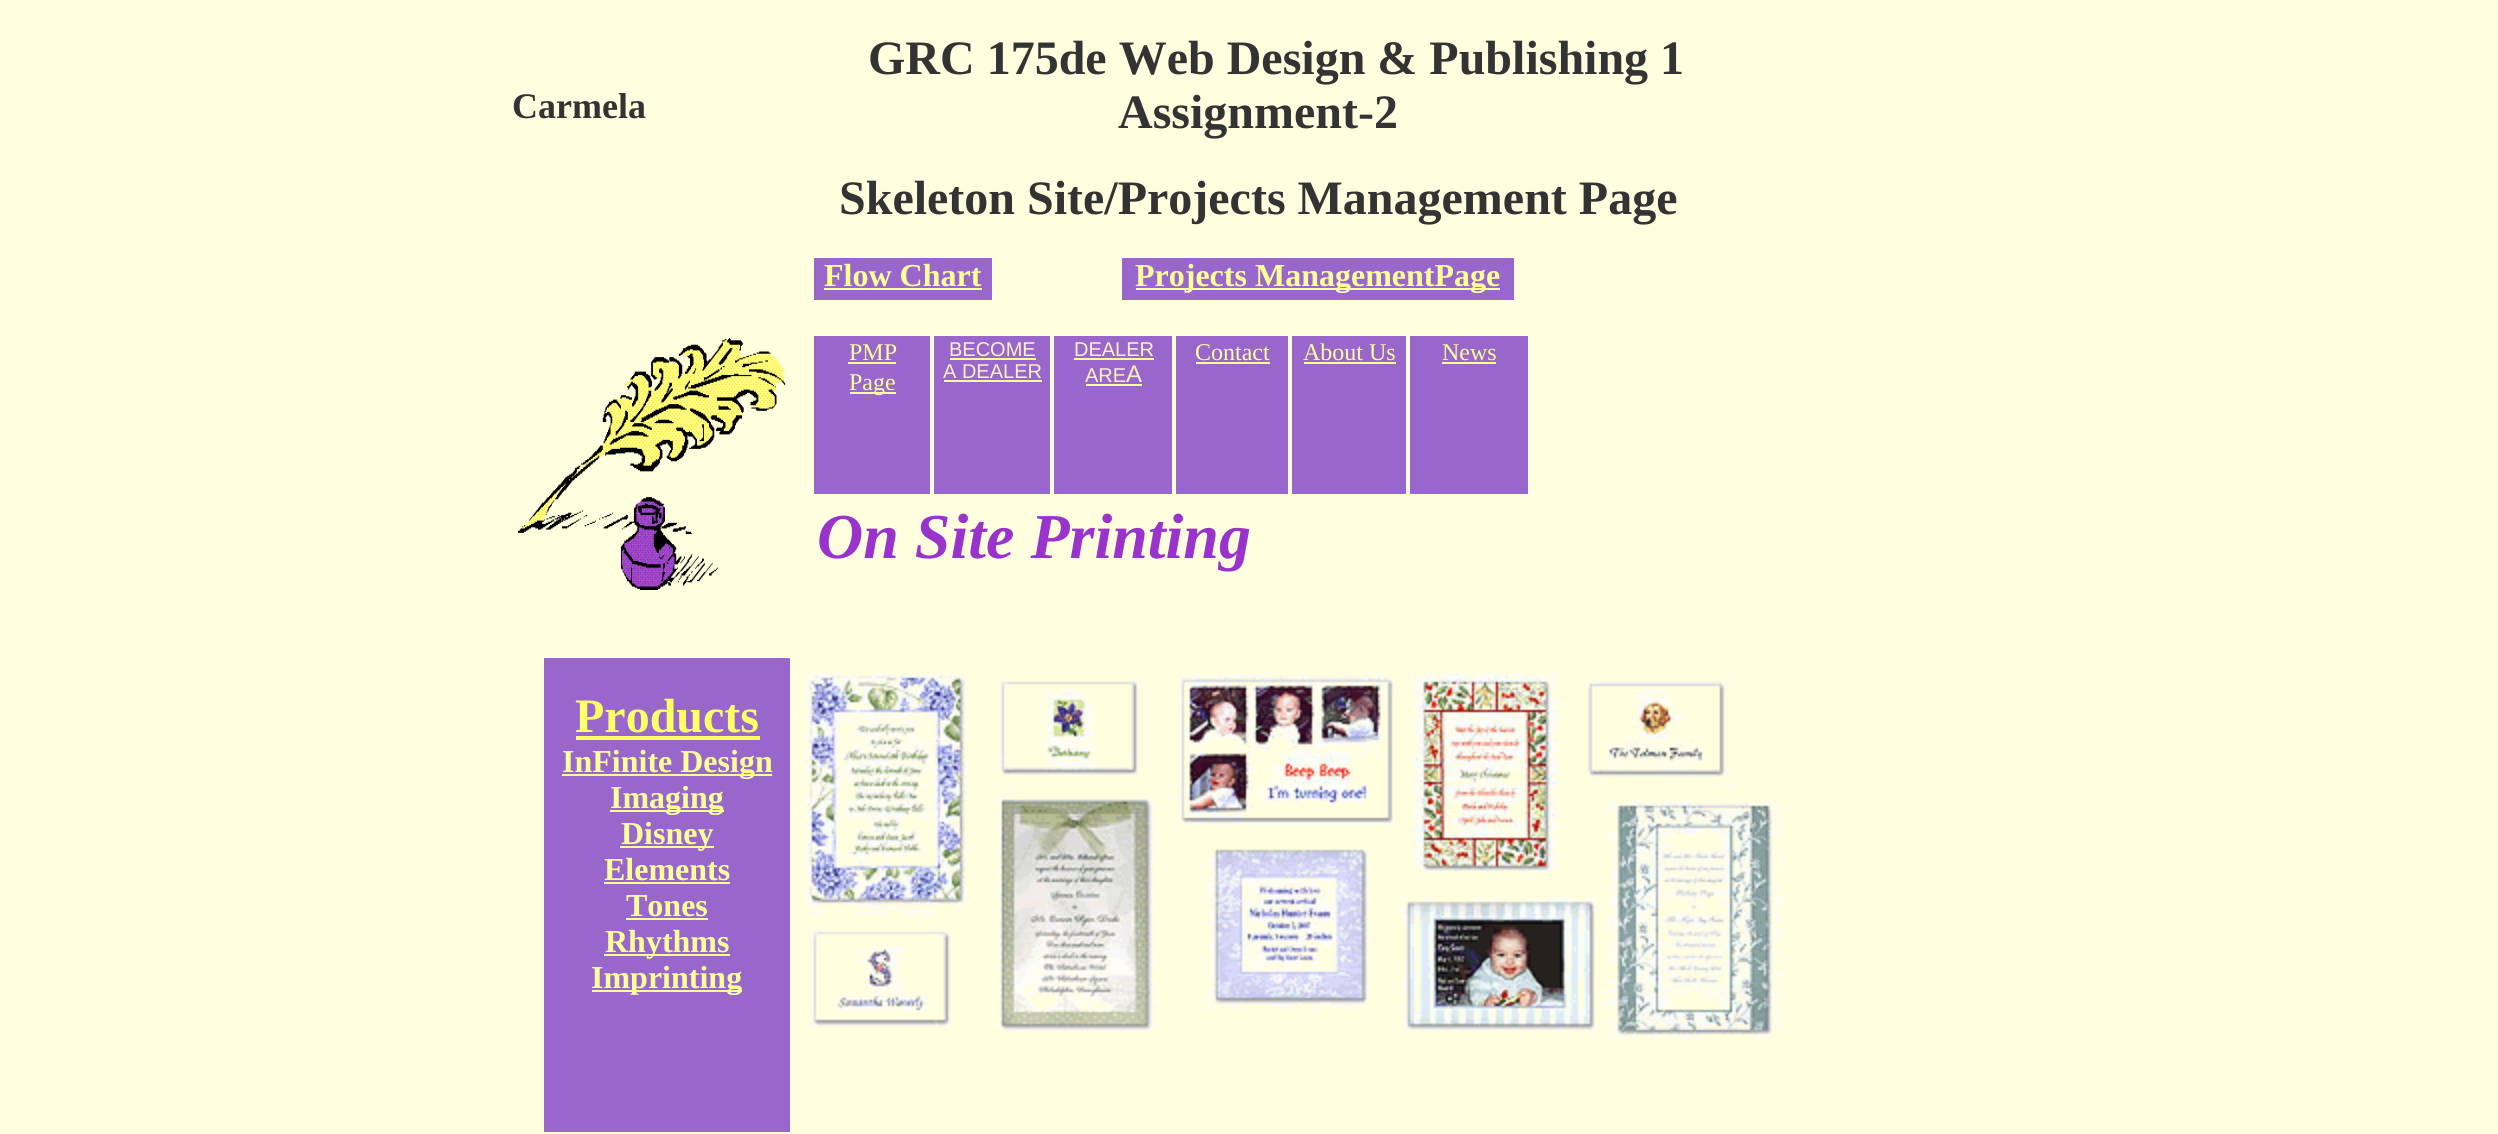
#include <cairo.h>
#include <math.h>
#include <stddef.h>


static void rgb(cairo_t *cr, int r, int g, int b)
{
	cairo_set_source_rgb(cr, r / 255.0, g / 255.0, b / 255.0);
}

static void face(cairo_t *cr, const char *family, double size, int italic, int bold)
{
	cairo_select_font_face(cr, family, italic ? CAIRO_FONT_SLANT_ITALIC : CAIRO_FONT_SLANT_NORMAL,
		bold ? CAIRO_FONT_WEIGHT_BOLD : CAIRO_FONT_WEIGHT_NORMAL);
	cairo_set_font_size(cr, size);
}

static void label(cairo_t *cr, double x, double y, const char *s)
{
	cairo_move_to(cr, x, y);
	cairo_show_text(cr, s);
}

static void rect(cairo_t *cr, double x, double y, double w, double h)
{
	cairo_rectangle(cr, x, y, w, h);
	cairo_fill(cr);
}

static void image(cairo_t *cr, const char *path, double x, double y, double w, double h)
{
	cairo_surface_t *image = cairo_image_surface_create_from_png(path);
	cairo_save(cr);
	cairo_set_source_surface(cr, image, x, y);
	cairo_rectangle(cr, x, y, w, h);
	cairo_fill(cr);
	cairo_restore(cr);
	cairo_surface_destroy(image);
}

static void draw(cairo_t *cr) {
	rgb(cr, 255, 254, 223);
	cairo_paint(cr);
	face(cr, "Liberation Serif", 48, 0, 1);
	rgb(cr, 51, 51, 51);
	label(cr, 868, 74, "GRC 175de Web Design & Publishing 1");
	face(cr, "Liberation Serif", 36, 0, 1);
	label(cr, 512, 118, "Carmela");
	face(cr, "Liberation Serif", 48, 0, 1);
	label(cr, 1118, 128, "Assignment-2");
	label(cr, 839, 214, "Skeleton Site/Projects Management Page");
	rgb(cr, 153, 102, 204);
	rect(cr, 814, 258, 178, 42);
	face(cr, "Liberation Serif", 32, 0, 1);
	rgb(cr, 255, 255, 153);
	label(cr, 824, 286, "Flow Chart");
	rect(cr, 824, 288, 158, 2);
	rgb(cr, 153, 102, 204);
	rect(cr, 1122, 258, 392, 42);
	rgb(cr, 255, 255, 153);
	rect(cr, 1136, 288, 350, 2);
	label(cr, 1135, 286, "Projects ManagementPage");
	rect(cr, 1486, 288, 14, 2);
	image(cr, "image0.png", 518, 338, 268, 252);
	rgb(cr, 153, 102, 204);
	rect(cr, 814, 336, 116, 158);
	face(cr, "Liberation Serif", 24, 0, 0);
	rgb(cr, 255, 255, 153);
	label(cr, 849, 360, "PMP");
	rect(cr, 848, 362, 48, 2);
	rect(cr, 850, 392, 46, 2);
	label(cr, 849, 390, "Page");
	rgb(cr, 153, 102, 204);
	rect(cr, 934, 336, 116, 158);
	face(cr, "Liberation Sans", 20, 0, 0);
	rgb(cr, 255, 241, 202);
	label(cr, 949, 356, "BECOME");
	rgb(cr, 255, 255, 153);
	rect(cr, 950, 358, 86, 2);
	rgb(cr, 255, 241, 202);
	label(cr, 943, 378, "A DEALER");
	rgb(cr, 255, 255, 153);
	rect(cr, 944, 380, 98, 2);
	rgb(cr, 153, 102, 204);
	rect(cr, 1054, 336, 118, 158);
	rgb(cr, 255, 241, 202);
	label(cr, 1074, 356, "DEALER");
	rgb(cr, 255, 255, 153);
	rect(cr, 1074, 358, 80, 2);
	rgb(cr, 255, 241, 202);
	label(cr, 1085, 382, "ARE");
	rgb(cr, 255, 255, 153);
	rect(cr, 1086, 384, 56, 2);
	face(cr, "Liberation Sans", 24, 0, 0);
	rgb(cr, 255, 241, 202);
	label(cr, 1126, 382, "A");
	rgb(cr, 153, 102, 204);
	rect(cr, 1176, 336, 112, 158);
	face(cr, "Liberation Serif", 24, 0, 0);
	rgb(cr, 255, 255, 153);
	label(cr, 1195, 360, "Contact");
	rect(cr, 1196, 362, 74, 2);
	rgb(cr, 153, 102, 204);
	rect(cr, 1292, 336, 114, 158);
	rgb(cr, 255, 255, 153);
	label(cr, 1303, 360, "About Us");
	rect(cr, 1304, 362, 92, 2);
	rgb(cr, 153, 102, 204);
	rect(cr, 1410, 336, 118, 158);
	rgb(cr, 255, 255, 153);
	label(cr, 1442, 360, "News");
	rect(cr, 1442, 362, 54, 2);
	face(cr, "Liberation Serif", 64, 1, 1);
	rgb(cr, 153, 51, 204);
	label(cr, 817, 558, "On Site Printing");
	rgb(cr, 153, 102, 204);
	rect(cr, 544, 658, 246, 474);
	face(cr, "Liberation Serif", 48, 0, 1);
	rgb(cr, 255, 255, 102);
	label(cr, 575, 732, "Products");
	rect(cr, 576, 736, 184, 4);
	rgb(cr, 255, 255, 153);
	rect(cr, 562, 774, 210, 2);
	face(cr, "Liberation Serif", 32, 0, 1);
	label(cr, 562, 772, "InFinite Design");
	rect(cr, 610, 810, 114, 2);
	label(cr, 610, 808, "Imaging");
	rect(cr, 620, 846, 94, 2);
	label(cr, 621, 844, "Disney");
	label(cr, 604, 880, "Elements");
	rect(cr, 604, 882, 126, 2);
	label(cr, 626, 916, "Tones");
	rect(cr, 626, 918, 82, 2);
	rect(cr, 604, 954, 126, 2);
	label(cr, 605, 952, "Rhythms");
	rect(cr, 592, 990, 150, 2);
	label(cr, 591, 988, "Imprinting");
	image(cr, "image1.png", 805, 673, 978, 370);
}

int main(void) {
	cairo_surface_t *surface = cairo_image_surface_create(CAIRO_FORMAT_RGB24, 2498, 1134);
	cairo_t *cr = cairo_create(surface);
	cairo_font_options_t *options = cairo_font_options_create();
	cairo_font_options_set_hint_metrics(options, CAIRO_HINT_METRICS_OFF);
	cairo_font_options_set_hint_style(options, CAIRO_HINT_STYLE_NONE);
	cairo_set_font_options(cr, options);
	cairo_set_miter_limit(cr, 4);
	draw(cr);
	cairo_surface_write_to_png(surface, "render.png");
	cairo_font_options_destroy(options);
	cairo_destroy(cr);
	cairo_surface_destroy(surface);
	return 0;
}
